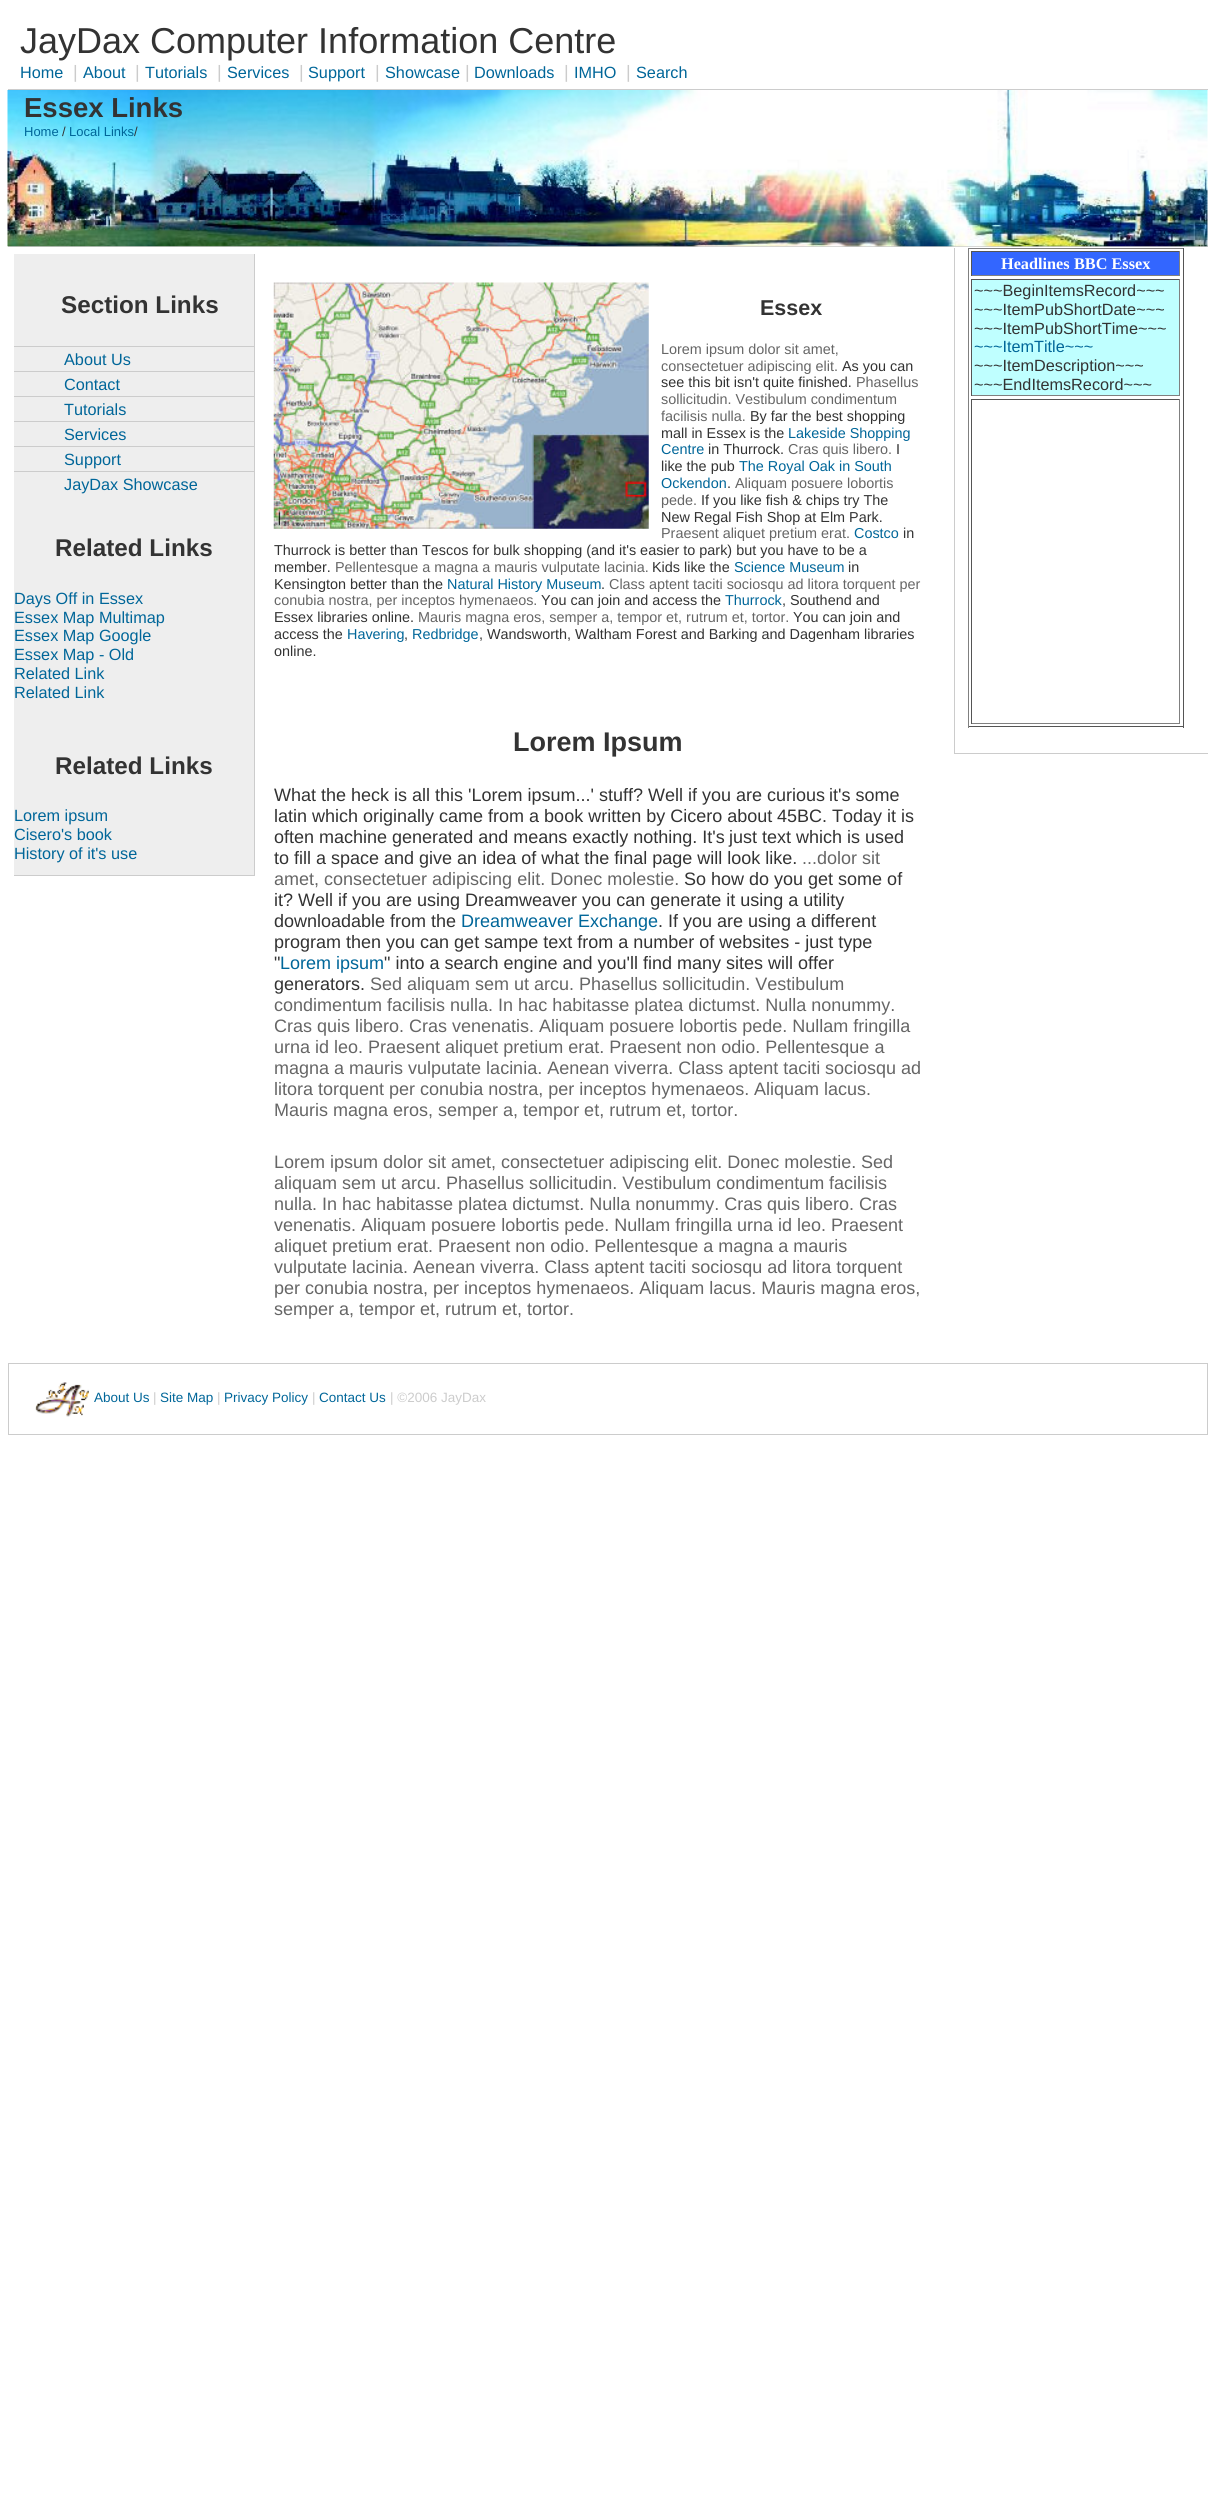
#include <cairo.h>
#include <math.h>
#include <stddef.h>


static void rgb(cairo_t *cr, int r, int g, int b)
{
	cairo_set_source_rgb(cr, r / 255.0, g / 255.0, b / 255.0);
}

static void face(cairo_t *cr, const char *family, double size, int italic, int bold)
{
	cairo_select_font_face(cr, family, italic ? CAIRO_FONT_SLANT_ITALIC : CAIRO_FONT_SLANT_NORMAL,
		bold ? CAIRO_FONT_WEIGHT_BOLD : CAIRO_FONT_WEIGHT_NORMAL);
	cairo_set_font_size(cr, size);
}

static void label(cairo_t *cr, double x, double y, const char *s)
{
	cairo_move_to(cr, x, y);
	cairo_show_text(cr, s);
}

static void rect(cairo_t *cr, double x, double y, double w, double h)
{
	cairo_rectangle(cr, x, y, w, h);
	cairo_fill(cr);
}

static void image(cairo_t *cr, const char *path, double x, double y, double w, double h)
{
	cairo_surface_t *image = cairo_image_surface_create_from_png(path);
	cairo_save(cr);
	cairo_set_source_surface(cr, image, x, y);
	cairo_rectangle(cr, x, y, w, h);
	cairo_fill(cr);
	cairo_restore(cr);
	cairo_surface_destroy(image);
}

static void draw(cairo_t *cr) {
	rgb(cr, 255, 255, 255);
	cairo_paint(cr);
	rgb(cr, 204, 204, 204);
	rect(cr, 8, 246, 1200, 1);
	face(cr, "Liberation Sans", 36, 0, 0);
	rgb(cr, 51, 51, 51);
	label(cr, 20, 53, "JayDax Computer Information Centre");
	rgb(cr, 204, 204, 204);
	rect(cr, 8, 89, 1200, 1);
	face(cr, "Liberation Sans", 16.25, 0, 0);
	rgb(cr, 0, 102, 153);
	label(cr, 20, 78, "Home");
	face(cr, "Liberation Sans", 18, 0, 0);
	rgb(cr, 204, 204, 204);
	label(cr, 73, 78, "|");
	face(cr, "Liberation Sans", 16.25, 0, 0);
	rgb(cr, 0, 102, 153);
	label(cr, 83, 78, "About");
	face(cr, "Liberation Sans", 18, 0, 0);
	rgb(cr, 204, 204, 204);
	label(cr, 135, 78, "|");
	face(cr, "Liberation Sans", 16.25, 0, 0);
	rgb(cr, 0, 102, 153);
	label(cr, 145, 78, "Tutorials");
	face(cr, "Liberation Sans", 18, 0, 0);
	rgb(cr, 204, 204, 204);
	label(cr, 217, 78, "|");
	face(cr, "Liberation Sans", 16.25, 0, 0);
	rgb(cr, 0, 102, 153);
	label(cr, 227, 78, "Services");
	face(cr, "Liberation Sans", 18, 0, 0);
	rgb(cr, 204, 204, 204);
	label(cr, 299, 78, "|");
	face(cr, "Liberation Sans", 16.25, 0, 0);
	rgb(cr, 0, 102, 153);
	label(cr, 308, 78, "Support");
	face(cr, "Liberation Sans", 18, 0, 0);
	rgb(cr, 204, 204, 204);
	label(cr, 375, 78, "|");
	face(cr, "Liberation Sans", 16.25, 0, 0);
	rgb(cr, 0, 102, 153);
	label(cr, 385, 78, "Showcase");
	face(cr, "Liberation Sans", 18, 0, 0);
	rgb(cr, 204, 204, 204);
	label(cr, 465, 78, "|");
	face(cr, "Liberation Sans", 16.25, 0, 0);
	rgb(cr, 0, 102, 153);
	label(cr, 474, 78, "Downloads");
	face(cr, "Liberation Sans", 18, 0, 0);
	rgb(cr, 204, 204, 204);
	label(cr, 564, 78, "|");
	face(cr, "Liberation Sans", 16.25, 0, 0);
	rgb(cr, 0, 102, 153);
	label(cr, 574, 78, "IMHO");
	face(cr, "Liberation Sans", 18, 0, 0);
	rgb(cr, 204, 204, 204);
	label(cr, 626, 78, "|");
	face(cr, "Liberation Sans", 16.25, 0, 0);
	rgb(cr, 0, 102, 153);
	label(cr, 636, 78, "Search");
	image(cr, "image0.png", 7, 90, 1201, 157);
	face(cr, "Liberation Sans", 27.5, 0, 1);
	rgb(cr, 51, 51, 51);
	label(cr, 24, 117, "Essex Links");
	face(cr, "Liberation Sans", 13, 0, 0);
	rgb(cr, 0, 102, 153);
	label(cr, 24, 136, "Home");
	rgb(cr, 51, 51, 51);
	label(cr, 62, 136, "/");
	rgb(cr, 0, 102, 153);
	label(cr, 69, 136, "Local Links");
	rgb(cr, 51, 51, 51);
	label(cr, 134, 136, "/");
	rgb(cr, 238, 238, 238);
	rect(cr, 14, 254, 240, 621);
	rgb(cr, 204, 204, 204);
	rect(cr, 254, 254, 1, 622);
	rect(cr, 14, 875, 241, 1);
	face(cr, "Liberation Sans", 24.25, 0, 1);
	rgb(cr, 51, 51, 51);
	label(cr, 61, 313, "Section Links");
	rgb(cr, 204, 204, 204);
	rect(cr, 14, 346, 240, 1);
	face(cr, "Liberation Sans", 16.25, 0, 0);
	rgb(cr, 0, 102, 153);
	label(cr, 64, 365, "About Us");
	rgb(cr, 204, 204, 204);
	rect(cr, 14, 371, 240, 1);
	rgb(cr, 0, 102, 153);
	label(cr, 64, 390, "Contact");
	rgb(cr, 204, 204, 204);
	rect(cr, 14, 396, 240, 1);
	rgb(cr, 0, 102, 153);
	label(cr, 64, 415, "Tutorials");
	rgb(cr, 204, 204, 204);
	rect(cr, 14, 421, 240, 1);
	rgb(cr, 0, 102, 153);
	label(cr, 64, 440, "Services");
	rgb(cr, 204, 204, 204);
	rect(cr, 14, 446, 240, 1);
	rgb(cr, 0, 102, 153);
	label(cr, 64, 465, "Support");
	rgb(cr, 204, 204, 204);
	rect(cr, 14, 471, 240, 1);
	rgb(cr, 0, 102, 153);
	label(cr, 64, 490, "JayDax Showcase");
	face(cr, "Liberation Sans", 24.25, 0, 1);
	rgb(cr, 51, 51, 51);
	label(cr, 55, 556, "Related Links");
	face(cr, "Liberation Sans", 16.25, 0, 0);
	rgb(cr, 0, 102, 153);
	label(cr, 14, 604, "Days Off in Essex");
	label(cr, 14, 623, "Essex Map Multimap");
	label(cr, 14, 641, "Essex Map Google");
	label(cr, 14, 660, "Essex Map - Old");
	label(cr, 14, 679, "Related Link");
	label(cr, 14, 698, "Related Link");
	face(cr, "Liberation Sans", 24.25, 0, 1);
	rgb(cr, 51, 51, 51);
	label(cr, 55, 774, "Related Links");
	face(cr, "Liberation Sans", 16.25, 0, 0);
	rgb(cr, 0, 102, 153);
	label(cr, 14, 821, "Lorem ipsum");
	label(cr, 14, 840, "Cisero's book");
	label(cr, 14, 859, "History of it's use");
	image(cr, "image1.png", 273, 282, 376, 247);
	face(cr, "Liberation Sans", 21.5, 0, 1);
	rgb(cr, 51, 51, 51);
	label(cr, 760, 315, "Essex");
	face(cr, "Liberation Sans", 14.4, 0, 0);
	rgb(cr, 102, 102, 102);
	label(cr, 661, 354, "Lorem ipsum dolor sit amet,");
	label(cr, 661, 371, "consectetuer adipiscing elit.");
	rgb(cr, 51, 51, 51);
	label(cr, 842, 371, "As you can");
	label(cr, 661, 387, "see this bit isn't quite finished.");
	rgb(cr, 102, 102, 102);
	label(cr, 856, 387, "Phasellus");
	label(cr, 661, 404, "sollicitudin. Vestibulum condimentum");
	label(cr, 661, 421, "facilisis nulla.");
	rgb(cr, 51, 51, 51);
	label(cr, 750, 421, "By far the best shopping");
	label(cr, 661, 438, "mall in Essex is the");
	rgb(cr, 0, 102, 153);
	label(cr, 788, 438, "Lakeside Shopping");
	label(cr, 661, 454, "Centre");
	rgb(cr, 51, 51, 51);
	label(cr, 708, 454, "in Thurrock.");
	rgb(cr, 102, 102, 102);
	label(cr, 788, 454, "Cras quis libero.");
	rgb(cr, 51, 51, 51);
	label(cr, 896, 454, "I");
	label(cr, 661, 471, "like the pub");
	rgb(cr, 0, 102, 153);
	label(cr, 739, 471, "The Royal Oak in South");
	label(cr, 661, 488, "Ockendon");
	rgb(cr, 51, 51, 51);
	label(cr, 727, 488, ".");
	rgb(cr, 102, 102, 102);
	label(cr, 735, 488, "Aliquam posuere lobortis");
	label(cr, 661, 505, "pede.");
	rgb(cr, 51, 51, 51);
	label(cr, 701, 505, "If you like fish & chips try The");
	label(cr, 661, 522, "New Regal Fish Shop at Elm Park.");
	rgb(cr, 102, 102, 102);
	label(cr, 661, 538, "Praesent aliquet pretium erat.");
	rgb(cr, 0, 102, 153);
	label(cr, 854, 538, "Costco");
	rgb(cr, 51, 51, 51);
	label(cr, 903, 538, "in");
	label(cr, 274, 555, "Thurrock is better than Tescos for bulk shopping (and it's easier to park) but you have to be a");
	label(cr, 274, 572, "member.");
	rgb(cr, 102, 102, 102);
	label(cr, 335, 572, "Pellentesque a magna a mauris vulputate lacinia.");
	rgb(cr, 51, 51, 51);
	label(cr, 652, 572, "Kids like the");
	rgb(cr, 0, 102, 153);
	label(cr, 734, 572, "Science Museum");
	rgb(cr, 51, 51, 51);
	label(cr, 848, 572, "in");
	label(cr, 274, 589, "Kensington better than the");
	rgb(cr, 0, 102, 153);
	label(cr, 447, 589, "Natural History Museum");
	rgb(cr, 51, 51, 51);
	label(cr, 601, 589, ".");
	rgb(cr, 102, 102, 102);
	label(cr, 609, 589, "Class aptent taciti sociosqu ad litora torquent per");
	label(cr, 274, 605, "conubia nostra, per inceptos hymenaeos.");
	rgb(cr, 51, 51, 51);
	label(cr, 541, 605, "You can join and access the");
	rgb(cr, 0, 102, 153);
	label(cr, 725, 605, "Thurrock");
	rgb(cr, 51, 51, 51);
	label(cr, 782, 605, ", Southend and");
	label(cr, 274, 622, "Essex libraries online.");
	rgb(cr, 102, 102, 102);
	label(cr, 418, 622, "Mauris magna eros, semper a, tempor et, rutrum et, tortor.");
	rgb(cr, 51, 51, 51);
	label(cr, 793, 622, "You can join and");
	label(cr, 274, 639, "access the");
	rgb(cr, 0, 102, 153);
	label(cr, 347, 639, "Havering");
	rgb(cr, 51, 51, 51);
	label(cr, 404, 639, ",");
	rgb(cr, 0, 102, 153);
	label(cr, 412, 639, "Redbridge");
	rgb(cr, 51, 51, 51);
	label(cr, 479, 639, ", Wandsworth, Waltham Forest and Barking and Dagenham libraries");
	label(cr, 274, 656, "online.");
	face(cr, "Liberation Sans", 27, 0, 1);
	label(cr, 513, 751, "Lorem Ipsum");
	face(cr, "Liberation Sans", 18, 0, 0);
	label(cr, 274, 801, "What the heck is all this 'Lorem ipsum...' stuff? Well if you are curious");
	label(cr, 829, 801, "it's some");
	label(cr, 274, 822, "latin which originally came from a book written by Cicero about");
	label(cr, 777, 822, "45BC. Today it is");
	label(cr, 274, 843, "often machine generated and means exactly nothing. It's");
	label(cr, 729, 843, "just text which is used");
	label(cr, 274, 864, "to fill a space and give an idea of what the final page will look like.");
	rgb(cr, 102, 102, 102);
	label(cr, 802, 864, "...dolor sit");
	label(cr, 274, 885, "amet, consectetuer adipiscing elit. Donec molestie.");
	rgb(cr, 51, 51, 51);
	label(cr, 684, 885, "So how do you get some of");
	label(cr, 274, 906, "it? Well if you are using Dreamweaver you can generate it using a utility");
	label(cr, 274, 927, "downloadable from the");
	rgb(cr, 0, 102, 153);
	label(cr, 461, 927, "Dreamweaver Exchange");
	rgb(cr, 51, 51, 51);
	label(cr, 658, 927, ". If you are using a different");
	label(cr, 274, 948, "program then you can get sampe text from a number of websites - just type");
	label(cr, 274, 969, "\"");
	rgb(cr, 0, 102, 153);
	label(cr, 280, 969, "Lorem ipsum");
	rgb(cr, 51, 51, 51);
	label(cr, 384, 969, "\" into a search engine and you'll find many sites will offer");
	label(cr, 274, 990, "generators.");
	rgb(cr, 102, 102, 102);
	label(cr, 370, 990, "Sed aliquam sem ut arcu. Phasellus sollicitudin. Vestibulum");
	label(cr, 274, 1011, "condimentum facilisis nulla. In hac habitasse platea dictumst. Nulla nonummy.");
	label(cr, 274, 1032, "Cras quis libero. Cras venenatis. Aliquam posuere lobortis pede. Nullam fringilla");
	label(cr, 274, 1053, "urna id leo. Praesent aliquet pretium erat. Praesent non odio. Pellentesque a");
	label(cr, 274, 1074, "magna a mauris vulputate lacinia. Aenean viverra. Class aptent taciti");
	label(cr, 825, 1074, "sociosqu ad");
	label(cr, 274, 1095, "litora torquent per conubia nostra, per inceptos hymenaeos.");
	label(cr, 754, 1095, "Aliquam lacus.");
	label(cr, 274, 1116, "Mauris magna eros, semper a, tempor et, rutrum et, tortor.");
	label(cr, 274, 1168, "Lorem ipsum dolor sit amet, consectetuer adipiscing elit. Donec molestie.");
	label(cr, 861, 1168, "Sed");
	label(cr, 274, 1189, "aliquam sem ut arcu. Phasellus sollicitudin. Vestibulum condimentum");
	label(cr, 829, 1189, "facilisis");
	label(cr, 274, 1210, "nulla. In hac habitasse platea dictumst. Nulla nonummy. Cras");
	label(cr, 767, 1210, "quis libero. Cras");
	label(cr, 274, 1231, "venenatis. Aliquam posuere lobortis pede. Nullam fringilla");
	label(cr, 737, 1231, "urna id leo. Praesent");
	label(cr, 274, 1252, "aliquet pretium erat. Praesent non odio. Pellentesque a magna a mauris");
	label(cr, 274, 1273, "vulputate lacinia. Aenean viverra. Class aptent taciti sociosqu ad litora torquent");
	label(cr, 274, 1294, "per conubia nostra, per inceptos hymenaeos. Aliquam lacus. Mauris magna eros,");
	label(cr, 274, 1315, "semper a, tempor et, rutrum et, tortor.");
	rgb(cr, 204, 204, 204);
	rect(cr, 954, 753, 254, 1);
	rect(cr, 954, 248, 1, 506);
	rgb(cr, 128, 128, 128);
	rect(cr, 968, 248, 216, 1);
	rgb(cr, 85, 85, 85);
	rect(cr, 1183, 248, 1, 480);
	rect(cr, 968, 726, 216, 1);
	rgb(cr, 128, 128, 128);
	rect(cr, 968, 248, 1, 480);
	rgb(cr, 51, 102, 255);
	rect(cr, 972, 252, 207, 23);
	rgb(cr, 85, 85, 85);
	rect(cr, 971, 251, 209, 1);
	rgb(cr, 128, 128, 128);
	rect(cr, 1179, 251, 1, 25);
	rect(cr, 971, 275, 209, 1);
	rgb(cr, 85, 85, 85);
	rect(cr, 971, 251, 1, 25);
	face(cr, "Liberation Serif", 16.25, 0, 1);
	rgb(cr, 255, 255, 255);
	label(cr, 1001, 269, "Headlines");
	label(cr, 1074, 269, "BBC Essex");
	rgb(cr, 191, 255, 255);
	rect(cr, 972, 280, 207, 115);
	rgb(cr, 85, 85, 85);
	rect(cr, 971, 279, 209, 1);
	rgb(cr, 128, 128, 128);
	rect(cr, 1179, 279, 1, 117);
	rect(cr, 971, 395, 209, 1);
	rgb(cr, 85, 85, 85);
	rect(cr, 971, 279, 1, 117);
	face(cr, "Liberation Sans", 16.25, 0, 0);
	rgb(cr, 51, 51, 51);
	label(cr, 974, 296, "~~~BeginItemsRecord~~~");
	label(cr, 974, 315, "~~~ItemPubShortDate~~~");
	label(cr, 974, 334, "~~~ItemPubShortTime~~~");
	rgb(cr, 0, 102, 153);
	label(cr, 974, 352, "~~~ItemTitle~~~");
	rgb(cr, 51, 51, 51);
	label(cr, 974, 371, "~~~ItemDescription~~~");
	label(cr, 974, 390, "~~~EndItemsRecord~~~");
	rgb(cr, 85, 85, 85);
	rect(cr, 971, 399, 209, 1);
	rgb(cr, 128, 128, 128);
	rect(cr, 1179, 399, 1, 325);
	rect(cr, 971, 723, 209, 1);
	rgb(cr, 85, 85, 85);
	rect(cr, 971, 399, 1, 325);
	cairo_rectangle(cr, 8.5, 1363.5, 1199, 71);
	rgb(cr, 204, 204, 204);
	cairo_set_line_width(cr, 1);
	cairo_stroke(cr);
	image(cr, "image2.png", 35, 1382, 54, 35);
	face(cr, "Liberation Sans", 13.5, 0, 0);
	rgb(cr, 0, 102, 153);
	label(cr, 94, 1402, "About Us");
	rgb(cr, 204, 204, 204);
	label(cr, 153, 1402, "|");
	rgb(cr, 0, 102, 153);
	label(cr, 160, 1402, "Site Map");
	rgb(cr, 204, 204, 204);
	label(cr, 217, 1402, "|");
	rgb(cr, 0, 102, 153);
	label(cr, 224, 1402, "Privacy Policy");
	rgb(cr, 204, 204, 204);
	label(cr, 312, 1402, "|");
	rgb(cr, 0, 102, 153);
	label(cr, 319, 1402, "Contact Us");
	rgb(cr, 204, 204, 204);
	label(cr, 390, 1402, "| ©2006 JayDax");
}

int main(void) {
	cairo_surface_t *surface = cairo_image_surface_create(CAIRO_FORMAT_RGB24, 1214, 2493);
	cairo_t *cr = cairo_create(surface);
	cairo_font_options_t *options = cairo_font_options_create();
	cairo_font_options_set_hint_metrics(options, CAIRO_HINT_METRICS_OFF);
	cairo_font_options_set_hint_style(options, CAIRO_HINT_STYLE_NONE);
	cairo_set_font_options(cr, options);
	cairo_set_miter_limit(cr, 4);
	draw(cr);
	cairo_surface_write_to_png(surface, "render.png");
	cairo_font_options_destroy(options);
	cairo_destroy(cr);
	cairo_surface_destroy(surface);
	return 0;
}
